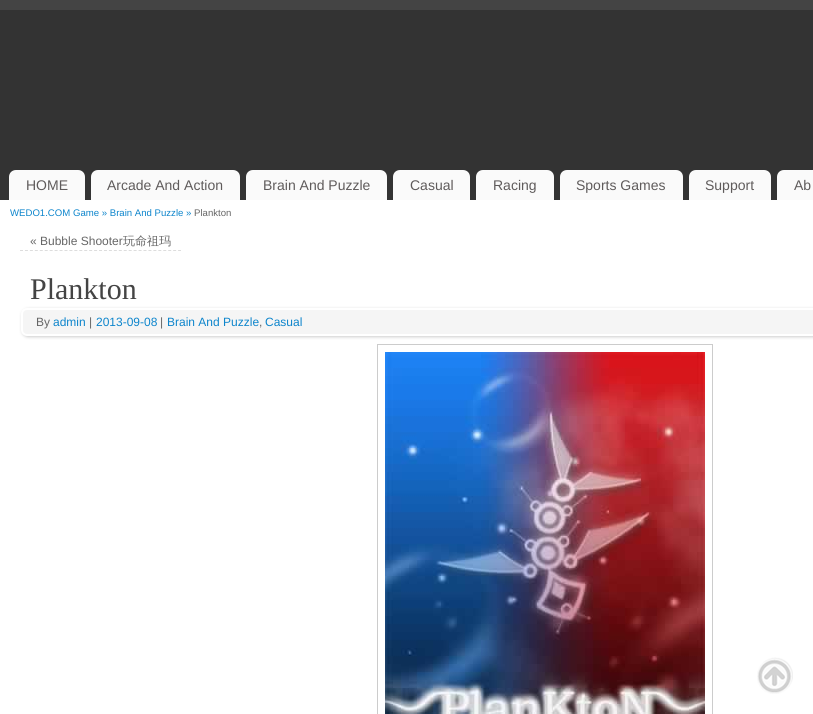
#include <cairo.h>
#include <math.h>
#include <stddef.h>


static void rgb(cairo_t *cr, int r, int g, int b)
{
	cairo_set_source_rgb(cr, r / 255.0, g / 255.0, b / 255.0);
}

static void face(cairo_t *cr, const char *family, double size, int italic, int bold)
{
	cairo_select_font_face(cr, family, italic ? CAIRO_FONT_SLANT_ITALIC : CAIRO_FONT_SLANT_NORMAL,
		bold ? CAIRO_FONT_WEIGHT_BOLD : CAIRO_FONT_WEIGHT_NORMAL);
	cairo_set_font_size(cr, size);
}

static void label(cairo_t *cr, double x, double y, const char *s)
{
	cairo_move_to(cr, x, y);
	cairo_show_text(cr, s);
}

static void rect(cairo_t *cr, double x, double y, double w, double h)
{
	cairo_rectangle(cr, x, y, w, h);
	cairo_fill(cr);
}

static void rrect(cairo_t *cr, double x, double y, double w, double h, double r)
{
	cairo_new_sub_path(cr);
	cairo_arc(cr, x + w - r, y + h - r, r, 0, M_PI / 2);
	cairo_arc(cr, x + r, y + h - r, r, M_PI / 2, M_PI);
	cairo_arc(cr, x + r, y + r, r, M_PI, 1.5 * M_PI);
	cairo_arc(cr, x + w - r, y + r, r, 1.5 * M_PI, 2 * M_PI);
	cairo_close_path(cr);
}

static void soft_shadow(cairo_t *cr, double x, double y, double w, double h, double r, double blur, double alpha)
{
	cairo_push_group_with_content(cr, CAIRO_CONTENT_ALPHA);
	cairo_set_operator(cr, CAIRO_OPERATOR_SOURCE);
	for (int i = 15; i >= -15 && fmin(w, h) + blur * i / 3 > 0; i -= 2) {
		double e = blur * i / 6;
		cairo_set_source_rgba(cr, 0, 0, 0, alpha * erfc((i - 1) / 8.5) / 2);
		rrect(cr, x - e, y - e, w + 2 * e, h + 2 * e, fmax(0, fmin(r + e + blur * .6, fmin(w, h) / 2 + e)));
		cairo_fill(cr);
	}
	cairo_pattern_t *soft = cairo_pop_group(cr);
	cairo_mask(cr, soft);
	cairo_pattern_destroy(soft);
}

static void image(cairo_t *cr, const char *path, double x, double y, double w, double h)
{
	cairo_surface_t *image = cairo_image_surface_create_from_png(path);
	cairo_save(cr);
	cairo_set_source_surface(cr, image, x, y);
	cairo_rectangle(cr, x, y, w, h);
	cairo_fill(cr);
	cairo_restore(cr);
	cairo_surface_destroy(image);
}

static void draw(cairo_t *cr) {
	rgb(cr, 68, 68, 68);
	cairo_paint(cr);
	rgb(cr, 51, 51, 51);
	rect(cr, 0, 10, 813, 190);
	rgb(cr, 250, 250, 250);
	cairo_new_path(cr);
	cairo_move_to(cr, 16, 170);
	cairo_line_to(cr, 78, 170);
	cairo_curve_to(cr, 82, 170, 85, 173, 85, 177);
	cairo_line_to(cr, 85, 200);
	cairo_line_to(cr, 9, 200);
	cairo_line_to(cr, 9, 177);
	cairo_curve_to(cr, 9, 173, 12, 170, 16, 170);
	cairo_close_path(cr);
	cairo_fill(cr);
	face(cr, "Liberation Sans", 14, 0, 0);
	rgb(cr, 95, 91, 91);
	label(cr, 26, 190, "HOME");
	rgb(cr, 250, 250, 250);
	cairo_new_path(cr);
	cairo_move_to(cr, 98, 170);
	cairo_line_to(cr, 233, 170);
	cairo_curve_to(cr, 237, 170, 240, 173, 240, 177);
	cairo_line_to(cr, 240, 200);
	cairo_line_to(cr, 91, 200);
	cairo_line_to(cr, 91, 177);
	cairo_curve_to(cr, 91, 173, 94, 170, 98, 170);
	cairo_close_path(cr);
	cairo_fill(cr);
	rgb(cr, 95, 91, 91);
	label(cr, 107, 190, "Arcade And Action");
	rgb(cr, 250, 250, 250);
	cairo_new_path(cr);
	cairo_move_to(cr, 253, 170);
	cairo_line_to(cr, 380, 170);
	cairo_curve_to(cr, 384, 170, 387, 173, 387, 177);
	cairo_line_to(cr, 387, 200);
	cairo_line_to(cr, 246, 200);
	cairo_line_to(cr, 246, 177);
	cairo_curve_to(cr, 246, 173, 249, 170, 253, 170);
	cairo_close_path(cr);
	cairo_fill(cr);
	rgb(cr, 95, 91, 91);
	label(cr, 263, 190, "Brain And Puzzle");
	rgb(cr, 250, 250, 250);
	cairo_new_path(cr);
	cairo_move_to(cr, 400, 170);
	cairo_line_to(cr, 463, 170);
	cairo_curve_to(cr, 467, 170, 470, 173, 470, 177);
	cairo_line_to(cr, 470, 200);
	cairo_line_to(cr, 393, 200);
	cairo_line_to(cr, 393, 177);
	cairo_curve_to(cr, 393, 173, 396, 170, 400, 170);
	cairo_close_path(cr);
	cairo_fill(cr);
	rgb(cr, 95, 91, 91);
	label(cr, 410, 190, "Casual");
	rgb(cr, 250, 250, 250);
	cairo_new_path(cr);
	cairo_move_to(cr, 483, 170);
	cairo_line_to(cr, 547, 170);
	cairo_curve_to(cr, 551, 170, 554, 173, 554, 177);
	cairo_line_to(cr, 554, 200);
	cairo_line_to(cr, 476, 200);
	cairo_line_to(cr, 476, 177);
	cairo_curve_to(cr, 476, 173, 479, 170, 483, 170);
	cairo_close_path(cr);
	cairo_fill(cr);
	rgb(cr, 95, 91, 91);
	label(cr, 493, 190, "Racing");
	rgb(cr, 250, 250, 250);
	cairo_new_path(cr);
	cairo_move_to(cr, 567, 170);
	cairo_line_to(cr, 676, 170);
	cairo_curve_to(cr, 680, 170, 683, 173, 683, 177);
	cairo_line_to(cr, 683, 200);
	cairo_line_to(cr, 560, 200);
	cairo_line_to(cr, 560, 177);
	cairo_curve_to(cr, 560, 173, 563, 170, 567, 170);
	cairo_close_path(cr);
	cairo_fill(cr);
	rgb(cr, 95, 91, 91);
	label(cr, 576, 190, "Sports Games");
	rgb(cr, 250, 250, 250);
	cairo_new_path(cr);
	cairo_move_to(cr, 696, 170);
	cairo_line_to(cr, 764, 170);
	cairo_curve_to(cr, 768, 170, 771, 173, 771, 177);
	cairo_line_to(cr, 771, 200);
	cairo_line_to(cr, 689, 200);
	cairo_line_to(cr, 689, 177);
	cairo_curve_to(cr, 689, 173, 692, 170, 696, 170);
	cairo_close_path(cr);
	cairo_fill(cr);
	rgb(cr, 95, 91, 91);
	label(cr, 705, 190, "Support");
	rgb(cr, 250, 250, 250);
	cairo_new_path(cr);
	cairo_move_to(cr, 784, 170);
	cairo_line_to(cr, 813, 170);
	cairo_curve_to(cr, 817, 170, 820, 173, 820, 177);
	cairo_line_to(cr, 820, 200);
	cairo_line_to(cr, 777, 200);
	cairo_line_to(cr, 777, 177);
	cairo_curve_to(cr, 777, 173, 780, 170, 784, 170);
	cairo_close_path(cr);
	cairo_fill(cr);
	rgb(cr, 95, 91, 91);
	label(cr, 794, 190, "Ab");
	rgb(cr, 255, 255, 255);
	rect(cr, 0, 200, 813, 514);
	face(cr, "Liberation Sans", 9.6, 0, 0);
	rgb(cr, 13, 133, 204);
	label(cr, 10, 216, "WEDO1.COM Game » Brain And Puzzle »");
	rgb(cr, 102, 102, 102);
	label(cr, 194, 216, "Plankton");
	cairo_new_path(cr);
	cairo_move_to(cr, 20, 250.5);
	cairo_line_to(cr, 181, 250.5);
	rgb(cr, 221, 221, 221);
	cairo_set_line_width(cr, 1);
	cairo_set_dash(cr, (double[]){3, 1.94}, 2, 0);
	cairo_stroke(cr);
	face(cr, "Liberation Sans", 12, 0, 0);
	rgb(cr, 102, 102, 102);
	label(cr, 30, 245, "« Bubble Shooter");
	face(cr, "WenQuanYi Zen Hei Medium", 12, 0, 0);
	label(cr, 123, 245, "玩命祖玛");
	face(cr, "Liberation Serif", 30, 0, 0);
	rgb(cr, 68, 68, 68);
	label(cr, 30, 299, "Plankton");
	rgb(cr, 204, 204, 204);
	soft_shadow(cr, 22, 309, 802, 28, 6, 1.5, 1);
	rgb(cr, 245, 245, 245);
	rrect(cr, 22, 309, 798, 26, 5);
	cairo_fill_preserve(cr);
	rgb(cr, 255, 255, 255);
	cairo_set_line_width(cr, 2);
	cairo_set_dash(cr, NULL, 0, 0);
	cairo_stroke(cr);
	face(cr, "Liberation Sans", 12, 0, 0);
	rgb(cr, 102, 102, 102);
	label(cr, 36, 326, "By");
	rgb(cr, 13, 133, 204);
	label(cr, 53, 326, "admin");
	rgb(cr, 102, 102, 102);
	label(cr, 89, 326, "|");
	rgb(cr, 13, 133, 204);
	label(cr, 96, 326, "2013-09-08");
	rgb(cr, 102, 102, 102);
	label(cr, 160, 326, "|");
	rgb(cr, 13, 133, 204);
	label(cr, 167, 326, "Brain And Puzzle");
	rgb(cr, 102, 102, 102);
	label(cr, 259, 326, ",");
	rgb(cr, 13, 133, 204);
	label(cr, 265, 326, "Casual");
	cairo_rectangle(cr, 377.5, 344.5, 335, 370);
	rgb(cr, 204, 204, 204);
	cairo_set_line_width(cr, 1);
	cairo_stroke(cr);
	image(cr, "image0.png", 385, 352, 320, 362);
	image(cr, "image1.png", 757, 657, 36, 37);
}

int main(void) {
	cairo_surface_t *surface = cairo_image_surface_create(CAIRO_FORMAT_RGB24, 813, 714);
	cairo_t *cr = cairo_create(surface);
	cairo_font_options_t *options = cairo_font_options_create();
	cairo_font_options_set_hint_metrics(options, CAIRO_HINT_METRICS_OFF);
	cairo_font_options_set_hint_style(options, CAIRO_HINT_STYLE_NONE);
	cairo_set_font_options(cr, options);
	cairo_set_miter_limit(cr, 4);
	draw(cr);
	cairo_surface_write_to_png(surface, "render.png");
	cairo_font_options_destroy(options);
	cairo_destroy(cr);
	cairo_surface_destroy(surface);
	return 0;
}
